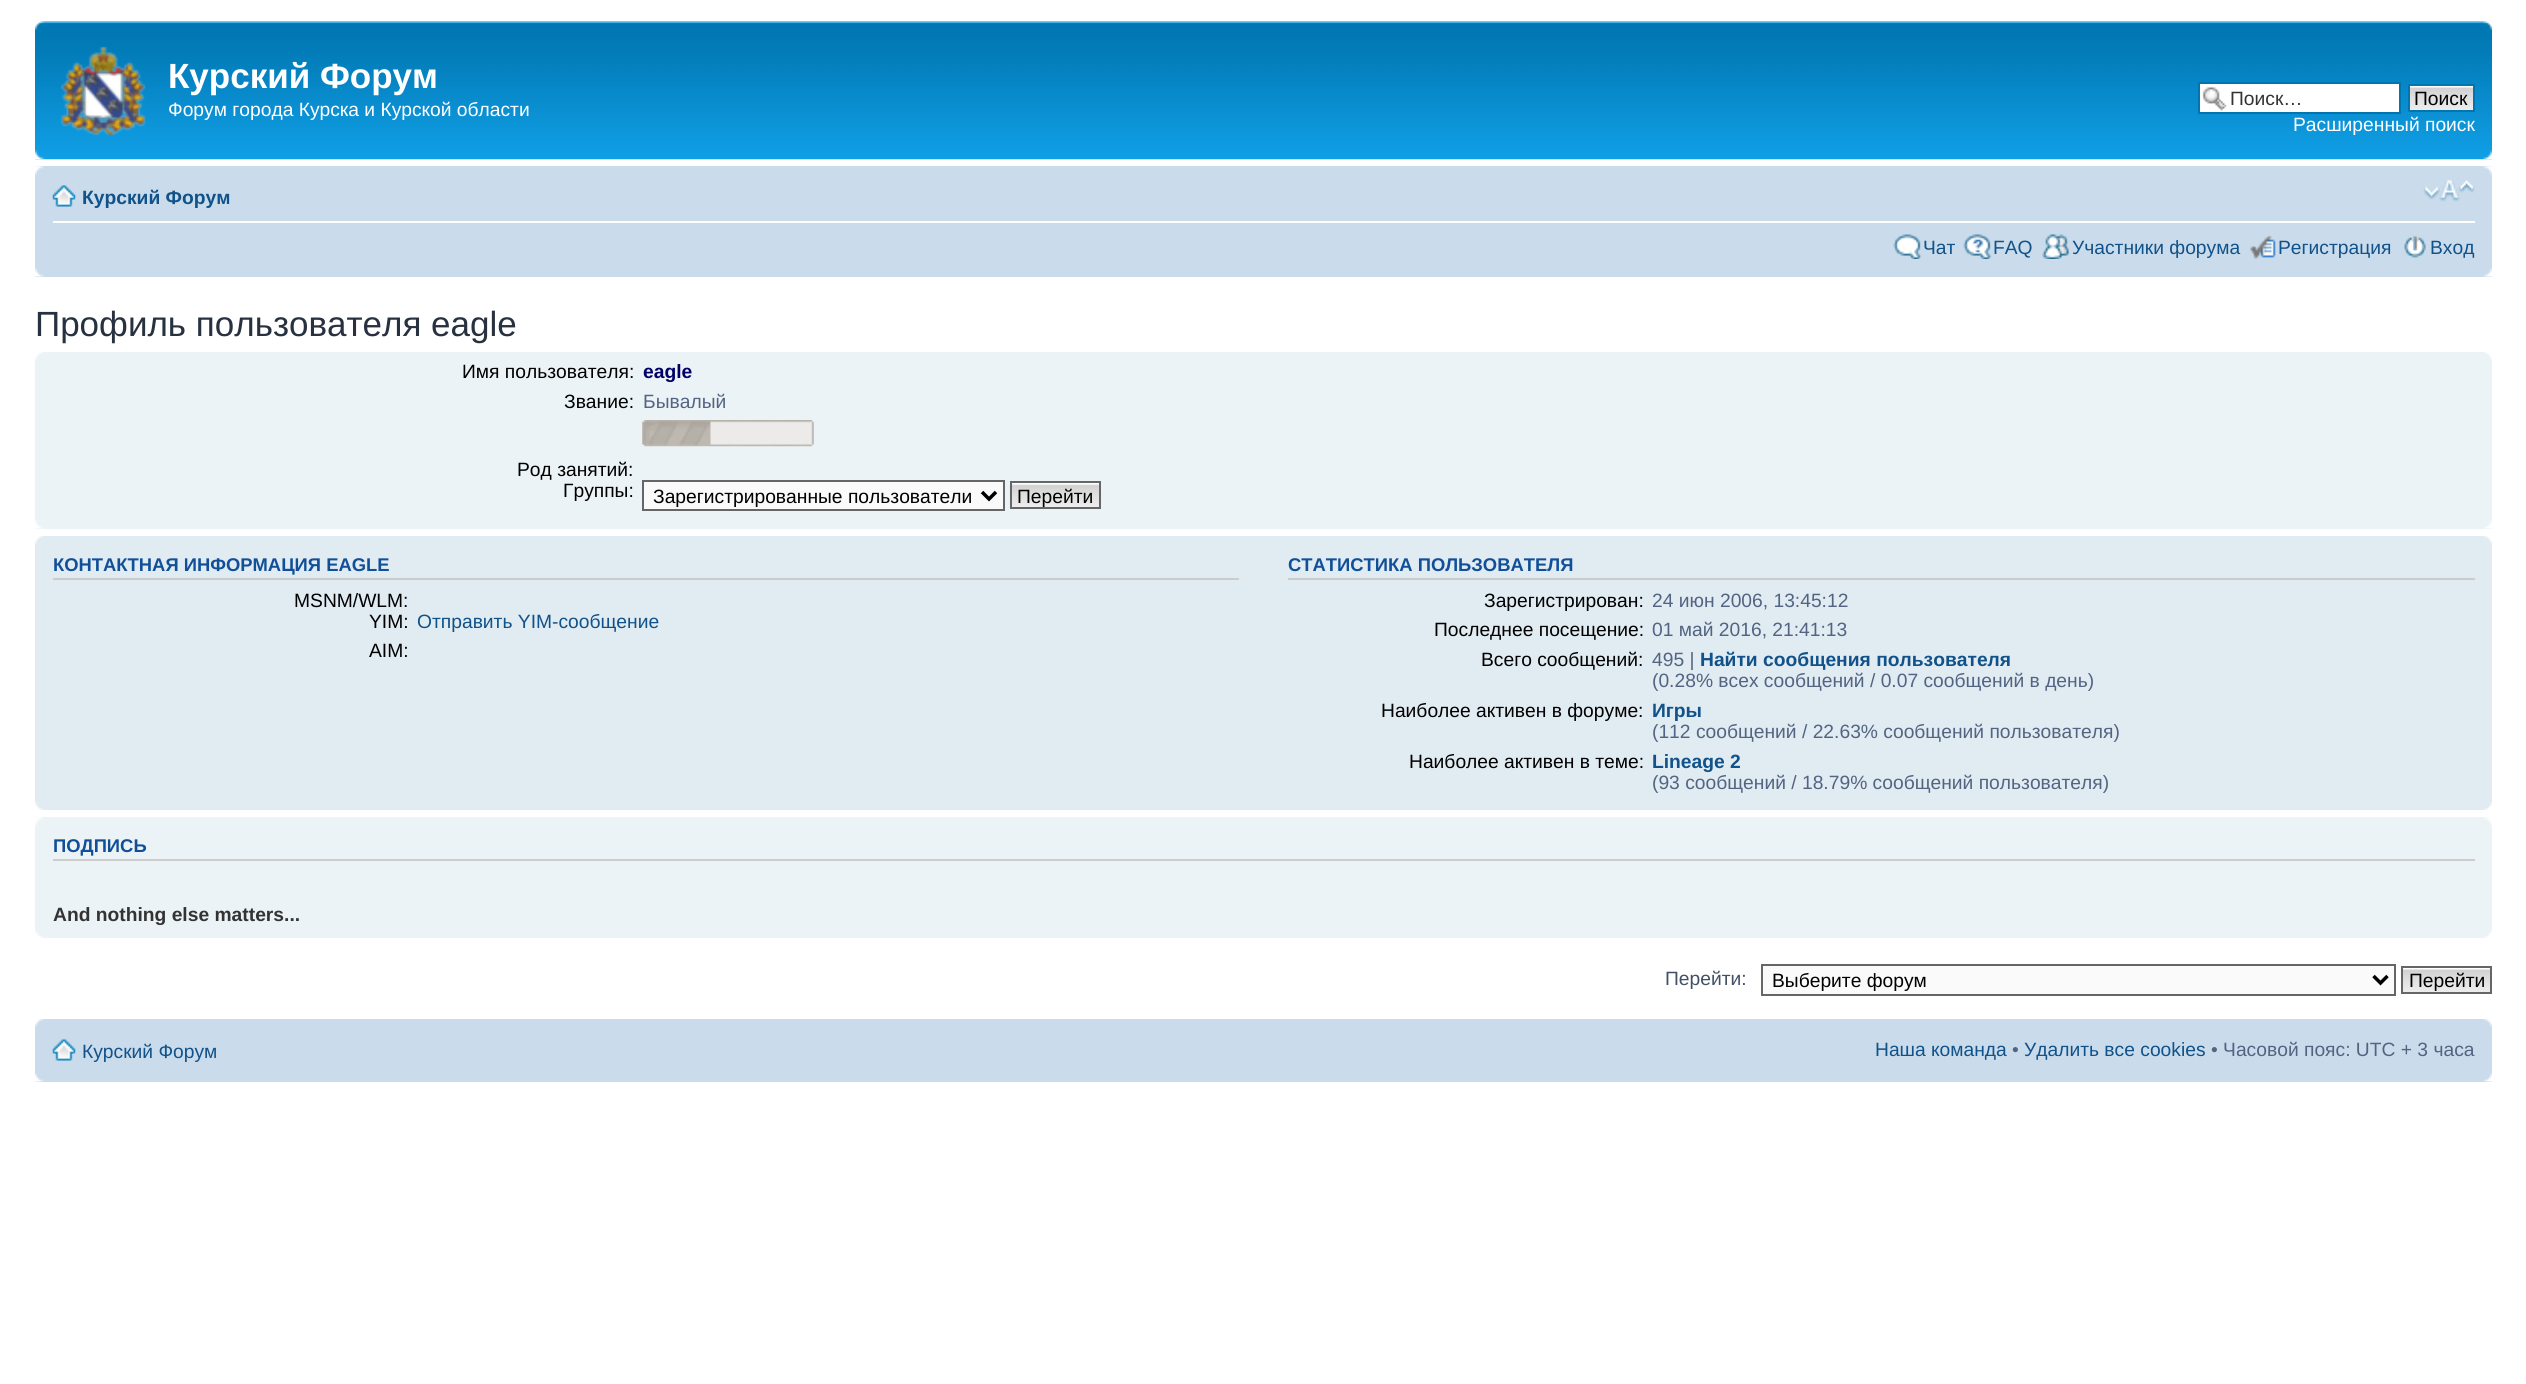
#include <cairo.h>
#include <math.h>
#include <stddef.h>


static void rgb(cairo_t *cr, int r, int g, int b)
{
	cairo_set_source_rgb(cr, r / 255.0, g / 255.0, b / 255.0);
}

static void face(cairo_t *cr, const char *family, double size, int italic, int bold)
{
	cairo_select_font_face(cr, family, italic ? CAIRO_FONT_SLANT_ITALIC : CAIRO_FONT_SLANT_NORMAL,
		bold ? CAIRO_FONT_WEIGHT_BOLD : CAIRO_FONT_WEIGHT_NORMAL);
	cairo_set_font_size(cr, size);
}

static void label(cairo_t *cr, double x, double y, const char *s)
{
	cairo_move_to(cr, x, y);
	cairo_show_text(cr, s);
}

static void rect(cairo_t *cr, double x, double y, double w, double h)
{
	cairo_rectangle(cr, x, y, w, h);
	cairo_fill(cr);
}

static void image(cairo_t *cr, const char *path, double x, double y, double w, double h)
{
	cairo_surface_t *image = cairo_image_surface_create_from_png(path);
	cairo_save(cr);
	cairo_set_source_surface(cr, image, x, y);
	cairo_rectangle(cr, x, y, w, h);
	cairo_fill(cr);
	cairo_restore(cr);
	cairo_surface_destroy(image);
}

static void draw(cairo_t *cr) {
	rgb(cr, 255, 255, 255);
	cairo_paint(cr);
	image(cr, "image0.png", 35, 21, 2457, 139);
	image(cr, "image1.png", 35, 21, 10, 9);
	image(cr, "image2.png", 2482, 21, 10, 9);
	image(cr, "image3.png", 61, 47, 85, 88);
	face(cr, "Liberation Sans", 35, 0, 1);
	rgb(cr, 255, 255, 255);
	label(cr, 168, 88, "Курский Форум");
	face(cr, "Liberation Sans", 19.25, 0, 0);
	label(cr, 168, 116, "Форум города Курска и Курской области");
	rect(cr, 2200, 84, 199, 28);
	image(cr, "image4.png", 2202, 87, 25, 24);
	cairo_rectangle(cr, 2199, 83, 201, 30);
	rgb(cr, 0, 117, 176);
	cairo_stroke(cr);
	rgb(cr, 51, 51, 51);
	label(cr, 2230, 105, "Поиск…");
	image(cr, "image5.png", 2410, 86, 63, 24);
	cairo_rectangle(cr, 2409, 85, 65, 26);
	rgb(cr, 0, 117, 176);
	cairo_stroke(cr);
	rgb(cr, 0, 0, 0);
	label(cr, 2414, 105, "Поиск");
	rgb(cr, 255, 255, 255);
	label(cr, 2293, 131, "Расширенный поиск");
	image(cr, "image6.png", 35, 150, 10, 10);
	image(cr, "image7.png", 2483, 150, 9, 10);
	rgb(cr, 202, 220, 235);
	rect(cr, 35, 166, 2457, 111);
	image(cr, "image8.png", 35, 166, 9, 9);
	image(cr, "image9.png", 2483, 166, 9, 9);
	rgb(cr, 255, 255, 255);
	rect(cr, 53, 221, 2422, 2);
	image(cr, "image10.png", 52, 185, 24, 22);
	face(cr, "Liberation Sans", 19.25, 0, 1);
	rgb(cr, 16, 82, 137);
	label(cr, 82, 204, "Курский Форум");
	image(cr, "image11.png", 2423, 180, 52, 22);
	image(cr, "image12.png", 1893, 234, 29, 25);
	face(cr, "Liberation Sans", 19.25, 0, 0);
	label(cr, 1923, 254, "Чат");
	image(cr, "image13.png", 1963, 234, 29, 25);
	label(cr, 1993, 254, "FAQ");
	image(cr, "image14.png", 2042, 234, 28, 25);
	label(cr, 2072, 254, "Участники форума");
	image(cr, "image15.png", 2250, 235, 26, 24);
	label(cr, 2278, 254, "Регистрация");
	image(cr, "image16.png", 2404, 236, 22, 22);
	label(cr, 2430, 254, "Вход");
	image(cr, "image17.png", 35, 268, 9, 9);
	image(cr, "image18.png", 2483, 268, 9, 9);
	face(cr, "Liberation Sans", 35, 0, 0);
	rgb(cr, 40, 49, 63);
	label(cr, 35, 336, "Профиль пользователя eagle");
	rgb(cr, 236, 243, 247);
	rect(cr, 35, 352, 2457, 177);
	image(cr, "image19.png", 35, 352, 8, 8);
	image(cr, "image20.png", 2484, 352, 8, 8);
	face(cr, "Liberation Sans", 19.25, 0, 0);
	rgb(cr, 0, 0, 0);
	label(cr, 462, 378, "Имя пользователя:");
	face(cr, "Liberation Sans", 19.25, 0, 1);
	rgb(cr, 0, 0, 102);
	label(cr, 643, 378, "eagle");
	face(cr, "Liberation Sans", 19.25, 0, 0);
	rgb(cr, 0, 0, 0);
	label(cr, 564, 408, "Звание:");
	rgb(cr, 83, 100, 130);
	label(cr, 643, 408, "Бывалый");
	image(cr, "image21.png", 642, 420, 172, 27);
	rgb(cr, 0, 0, 0);
	label(cr, 517, 476, "Род занятий:");
	label(cr, 563, 497, "Группы:");
	rgb(cr, 250, 250, 250);
	cairo_rectangle(cr, 643, 481, 361, 29);
	cairo_fill_preserve(cr);
	rgb(cr, 102, 102, 102);
	cairo_stroke(cr);
	cairo_new_path(cr);
	cairo_move_to(cr, 982, 492);
	cairo_line_to(cr, 989, 499);
	cairo_line_to(cr, 996, 492);
	rgb(cr, 0, 0, 0);
	cairo_set_line_width(cr, 3.5);
	cairo_stroke(cr);
	label(cr, 653, 503, "Зарегистрированные пользователи");
	image(cr, "image22.png", 1009, 483, 90, 26);
	cairo_rectangle(cr, 1011, 482, 89, 26);
	rgb(cr, 102, 102, 102);
	cairo_set_line_width(cr, 2);
	cairo_stroke(cr);
	rgb(cr, 0, 0, 0);
	label(cr, 1017, 503, "Перейти");
	image(cr, "image23.png", 35, 520, 8, 9);
	image(cr, "image24.png", 2484, 520, 8, 9);
	rgb(cr, 225, 235, 242);
	rect(cr, 35, 536, 2457, 274);
	image(cr, "image25.png", 35, 536, 9, 8);
	image(cr, "image26.png", 2483, 536, 9, 8);
	rgb(cr, 204, 204, 204);
	rect(cr, 53, 578, 1186, 2);
	face(cr, "Liberation Sans", 18.4, 0, 1);
	rgb(cr, 17, 80, 152);
	label(cr, 53, 571, "КОНТАКТНАЯ ИНФОРМАЦИЯ EAGLE");
	face(cr, "Liberation Sans", 19.25, 0, 0);
	rgb(cr, 0, 0, 0);
	label(cr, 294, 607, "MSNM/WLM:");
	label(cr, 369, 628, "YIM:");
	rgb(cr, 16, 82, 137);
	label(cr, 417, 628, "Отправить YIM-сообщение");
	rgb(cr, 0, 0, 0);
	label(cr, 369, 657, "AIM:");
	rgb(cr, 204, 204, 204);
	rect(cr, 1288, 578, 1187, 2);
	face(cr, "Liberation Sans", 18.4, 0, 1);
	rgb(cr, 17, 80, 152);
	label(cr, 1288, 571, "СТАТИСТИКА ПОЛЬЗОВАТЕЛЯ");
	face(cr, "Liberation Sans", 19.25, 0, 0);
	rgb(cr, 0, 0, 0);
	label(cr, 1484, 607, "Зарегистрирован:");
	rgb(cr, 83, 100, 130);
	label(cr, 1652, 607, "24 июн 2006, 13:45:12");
	rgb(cr, 0, 0, 0);
	label(cr, 1434, 636, "Последнее посещение:");
	rgb(cr, 83, 100, 130);
	label(cr, 1652, 636, "01 май 2016, 21:41:13");
	rgb(cr, 0, 0, 0);
	label(cr, 1481, 666, "Всего сообщений:");
	rgb(cr, 83, 100, 130);
	label(cr, 1652, 666, "495 |");
	face(cr, "Liberation Sans", 19.25, 0, 1);
	rgb(cr, 16, 82, 137);
	label(cr, 1700, 666, "Найти сообщения пользователя");
	face(cr, "Liberation Sans", 19.25, 0, 0);
	rgb(cr, 83, 100, 130);
	label(cr, 1652, 687, "(0.28% всех сообщений / 0.07 сообщений в день)");
	rgb(cr, 0, 0, 0);
	label(cr, 1381, 717, "Наиболее активен в форуме:");
	face(cr, "Liberation Sans", 19.25, 0, 1);
	rgb(cr, 16, 82, 137);
	label(cr, 1652, 717, "Игры");
	face(cr, "Liberation Sans", 19.25, 0, 0);
	rgb(cr, 83, 100, 130);
	label(cr, 1652, 738, "(112 сообщений / 22.63% сообщений пользователя)");
	rgb(cr, 0, 0, 0);
	label(cr, 1409, 768, "Наиболее активен в теме:");
	face(cr, "Liberation Sans", 19.25, 0, 1);
	rgb(cr, 16, 82, 137);
	label(cr, 1652, 768, "Lineage 2");
	face(cr, "Liberation Sans", 19.25, 0, 0);
	rgb(cr, 83, 100, 130);
	label(cr, 1652, 789, "(93 сообщений / 18.79% сообщений пользователя)");
	image(cr, "image27.png", 35, 802, 9, 8);
	image(cr, "image28.png", 2483, 802, 9, 8);
	rgb(cr, 236, 243, 247);
	rect(cr, 35, 817, 2457, 121);
	image(cr, "image29.png", 35, 817, 8, 9);
	image(cr, "image30.png", 2484, 817, 8, 9);
	rgb(cr, 204, 204, 204);
	rect(cr, 53, 859, 2422, 2);
	face(cr, "Liberation Sans", 18.4, 0, 1);
	rgb(cr, 17, 80, 152);
	label(cr, 53, 852, "ПОДПИСЬ");
	face(cr, "Liberation Sans", 19.25, 0, 1);
	rgb(cr, 51, 51, 51);
	label(cr, 53, 921, "And nothing else matters...");
	image(cr, "image31.png", 35, 930, 8, 8);
	image(cr, "image32.png", 2484, 930, 8, 8);
	face(cr, "Liberation Sans", 19.25, 0, 0);
	rgb(cr, 66, 80, 103);
	label(cr, 1665, 985, "Перейти:");
	rgb(cr, 250, 250, 250);
	cairo_rectangle(cr, 1762, 965, 633, 30);
	cairo_fill_preserve(cr);
	rgb(cr, 102, 102, 102);
	cairo_stroke(cr);
	cairo_new_path(cr);
	cairo_move_to(cr, 2373.5, 976);
	cairo_line_to(cr, 2380.5, 983);
	cairo_line_to(cr, 2387.5, 976);
	rgb(cr, 0, 0, 0);
	cairo_set_line_width(cr, 3.5);
	cairo_stroke(cr);
	label(cr, 1772, 987, "Выберите форум");
	image(cr, "image33.png", 2403, 968, 87, 24);
	cairo_rectangle(cr, 2402, 967, 89, 26);
	rgb(cr, 102, 102, 102);
	cairo_set_line_width(cr, 2);
	cairo_stroke(cr);
	rgb(cr, 0, 0, 0);
	label(cr, 2409, 987, "Перейти");
	rgb(cr, 202, 220, 235);
	rect(cr, 35, 1019, 2457, 63);
	image(cr, "image34.png", 35, 1019, 9, 8);
	image(cr, "image35.png", 2483, 1019, 9, 8);
	image(cr, "image10.png", 52, 1039, 24, 22);
	rgb(cr, 16, 82, 137);
	label(cr, 82, 1058, "Курский Форум");
	label(cr, 1875, 1056, "Наша команда");
	rgb(cr, 83, 100, 130);
	label(cr, 2012, 1056, "•");
	rgb(cr, 16, 82, 137);
	label(cr, 2024, 1056, "Удалить все cookies");
	rgb(cr, 83, 100, 130);
	label(cr, 2211, 1056, "• Часовой пояс: UTC + 3 часа");
	image(cr, "image17.png", 35, 1073, 9, 9);
	image(cr, "image18.png", 2483, 1073, 9, 9);
}

int main(void) {
	cairo_surface_t *surface = cairo_image_surface_create(CAIRO_FORMAT_RGB24, 2526, 1384);
	cairo_t *cr = cairo_create(surface);
	cairo_font_options_t *options = cairo_font_options_create();
	cairo_font_options_set_hint_metrics(options, CAIRO_HINT_METRICS_OFF);
	cairo_font_options_set_hint_style(options, CAIRO_HINT_STYLE_NONE);
	cairo_set_font_options(cr, options);
	cairo_set_miter_limit(cr, 4);
	draw(cr);
	cairo_surface_write_to_png(surface, "render.png");
	cairo_font_options_destroy(options);
	cairo_destroy(cr);
	cairo_surface_destroy(surface);
	return 0;
}
